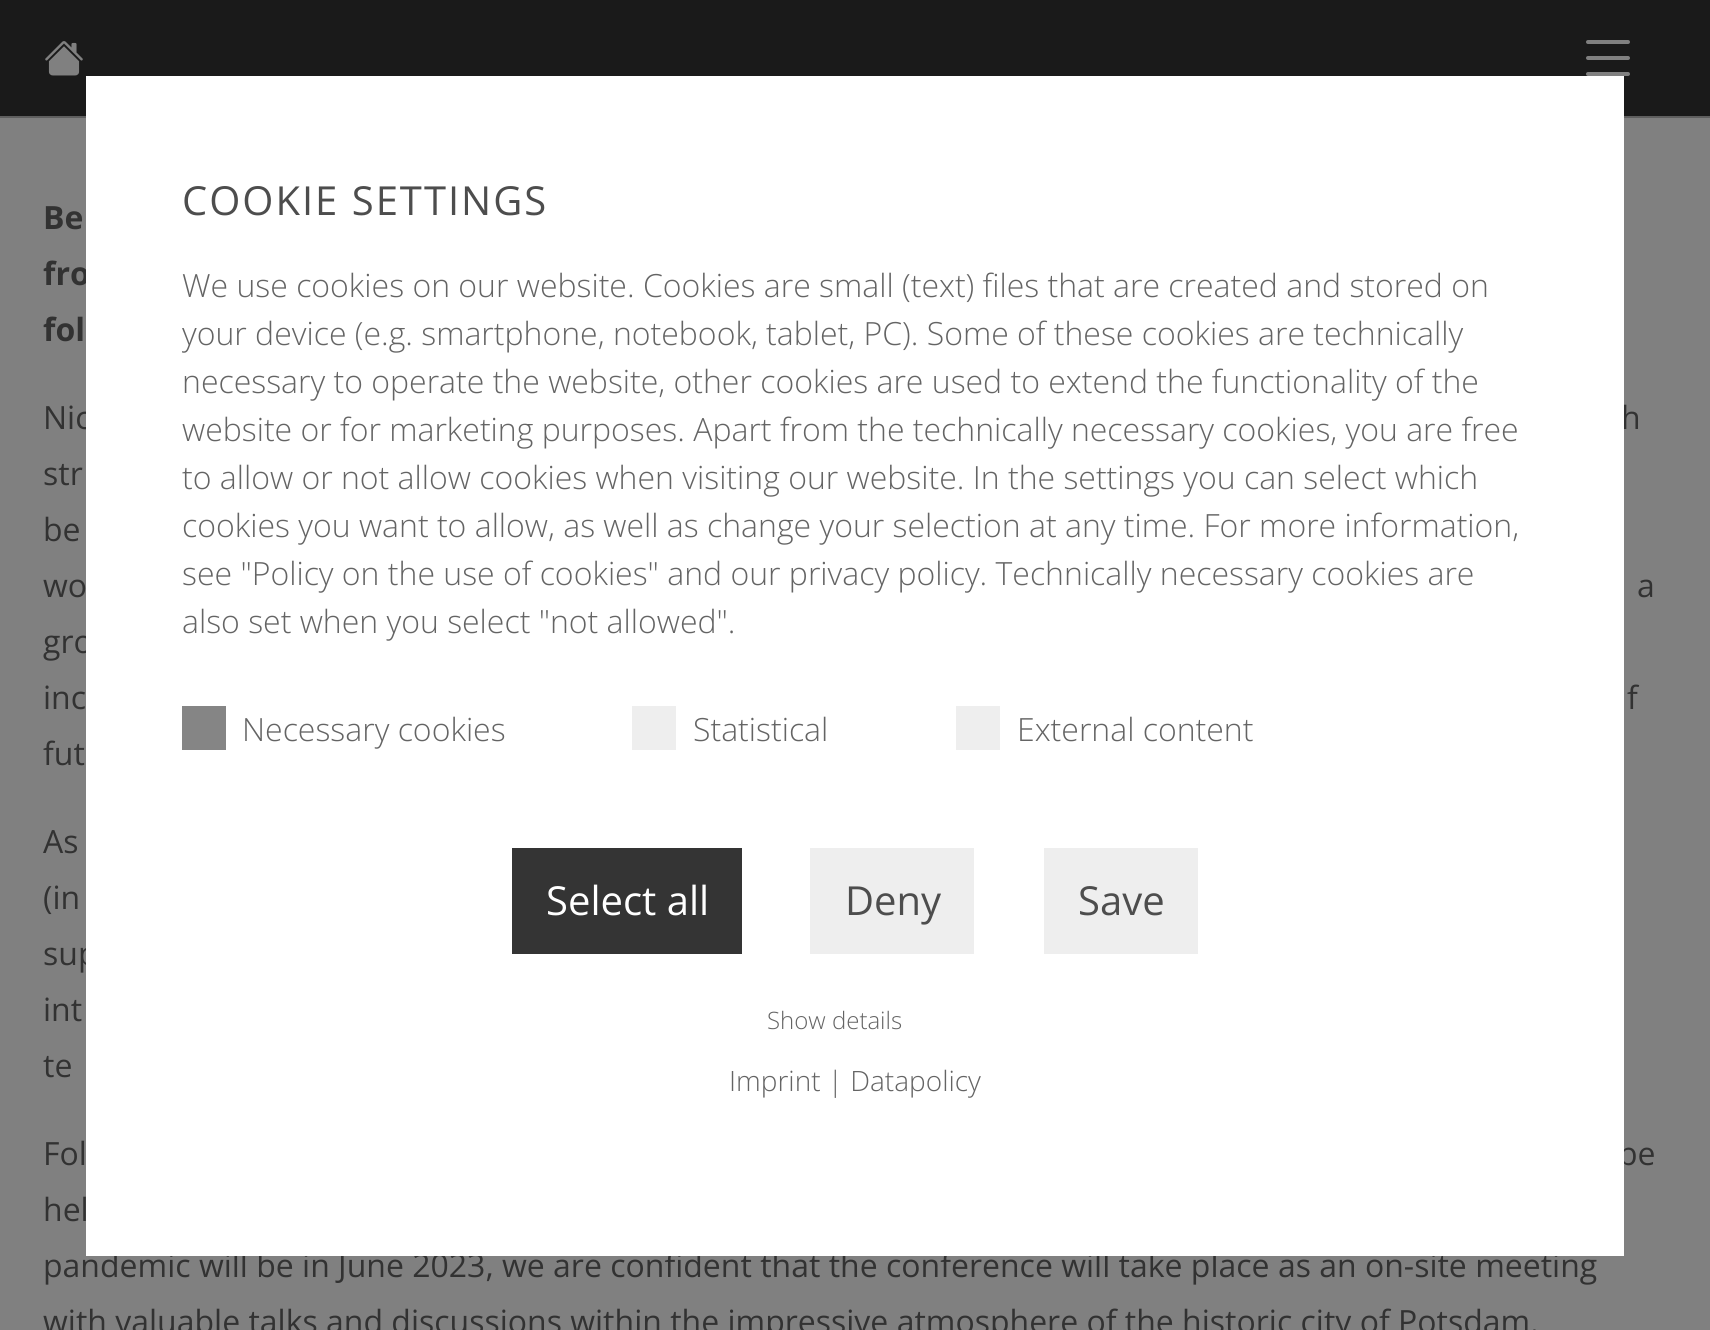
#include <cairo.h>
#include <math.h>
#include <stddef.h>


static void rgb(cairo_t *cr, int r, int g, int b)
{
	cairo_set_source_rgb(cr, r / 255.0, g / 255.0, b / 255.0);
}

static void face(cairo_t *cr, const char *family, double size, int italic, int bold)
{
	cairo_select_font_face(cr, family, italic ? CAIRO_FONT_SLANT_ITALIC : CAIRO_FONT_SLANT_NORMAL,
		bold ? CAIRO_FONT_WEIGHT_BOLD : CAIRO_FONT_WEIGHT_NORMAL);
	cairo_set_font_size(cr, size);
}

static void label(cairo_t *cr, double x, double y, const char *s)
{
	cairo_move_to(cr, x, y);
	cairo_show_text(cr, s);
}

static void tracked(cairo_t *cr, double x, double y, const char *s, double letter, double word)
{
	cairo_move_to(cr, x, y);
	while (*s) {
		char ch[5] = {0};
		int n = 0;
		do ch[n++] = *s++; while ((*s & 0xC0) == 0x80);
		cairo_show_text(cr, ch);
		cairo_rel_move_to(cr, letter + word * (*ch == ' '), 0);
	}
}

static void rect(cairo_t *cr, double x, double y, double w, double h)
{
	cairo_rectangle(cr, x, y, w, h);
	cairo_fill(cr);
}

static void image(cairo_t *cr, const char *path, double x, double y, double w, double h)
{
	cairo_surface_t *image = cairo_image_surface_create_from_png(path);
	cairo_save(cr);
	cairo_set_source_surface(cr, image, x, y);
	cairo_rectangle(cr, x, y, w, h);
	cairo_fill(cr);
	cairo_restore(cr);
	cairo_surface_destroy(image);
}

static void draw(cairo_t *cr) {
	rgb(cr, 128, 128, 128);
	cairo_paint(cr);
	rgb(cr, 26, 26, 26);
	rect(cr, 0, 0, 1710, 116);
	rgb(cr, 95, 95, 95);
	rect(cr, 0, 116, 1710, 2);
	image(cr, "image0.png", 45, 41, 38, 35);
	image(cr, "image1.png", 1586, 40, 44, 36);
	face(cr, "Open Sans", 32, 0, 1);
	rgb(cr, 50, 50, 50);
	label(cr, 43, 285, "fro");
	face(cr, "Open Sans", 32, 0, 0);
	label(cr, 43, 429, "Nic");
	label(cr, 1621, 429, "h");
	label(cr, 43, 653, "gro");
	label(cr, 43, 965, "sup");
	label(cr, 1618, 1165, "be");
	label(cr, 43, 1221, "hel");
	label(cr, 43, 1277, "pandemic will be in June 2023, we are confident that the conference will take place as an on-site meeting");
	rgb(cr, 255, 255, 255);
	rect(cr, 86, 76, 1538, 1180);
	face(cr, "Open Sans", 40, 0, 0);
	rgb(cr, 77, 77, 77);
	tracked(cr, 182, 215, "COOKIE SETTINGS", 2, 0);
	face(cr, "Open Sans Light", 32, 0, 0);
	rgb(cr, 100, 100, 100);
	label(cr, 182, 297, "We use cookies on our website. Cookies are small (text) files that are created and stored on");
	label(cr, 182, 345, "your device (e.g. smartphone, notebook, tablet, PC). Some of these cookies are technically");
	label(cr, 182, 393, "necessary to operate the website, other cookies are used to extend the functionality of the");
	label(cr, 182, 441, "website or for marketing purposes. Apart from the technically necessary cookies, you are free");
	label(cr, 182, 489, "to allow or not allow cookies when visiting our website. In the settings you can select which");
	label(cr, 182, 537, "cookies you want to allow, as well as change your selection at any time. For more information,");
	label(cr, 182, 585, "see \"Policy on the use of cookies\" and our privacy policy. Technically necessary cookies are");
	label(cr, 182, 633, "also set when you select \"not allowed\".");
	rgb(cr, 133, 133, 133);
	rect(cr, 182, 706, 44, 44);
	rgb(cr, 100, 100, 100);
	label(cr, 242, 741, "Necessary cookies");
	rgb(cr, 238, 238, 238);
	rect(cr, 632, 706, 44, 44);
	rgb(cr, 100, 100, 100);
	label(cr, 693, 741, "Statistical");
	rgb(cr, 238, 238, 238);
	rect(cr, 956, 706, 44, 44);
	rgb(cr, 100, 100, 100);
	label(cr, 1017, 741, "External content");
	rgb(cr, 52, 52, 52);
	rect(cr, 512, 848, 230, 106);
	face(cr, "Open Sans", 40, 0, 0);
	rgb(cr, 255, 255, 255);
	label(cr, 546, 915, "Select all");
	rgb(cr, 238, 238, 238);
	rect(cr, 810, 848, 164, 106);
	rgb(cr, 77, 77, 77);
	label(cr, 845, 915, "Deny");
	rgb(cr, 238, 238, 238);
	rect(cr, 1044, 848, 154, 106);
	rgb(cr, 77, 77, 77);
	label(cr, 1078, 915, "Save");
	face(cr, "Open Sans Light", 24, 0, 0);
	rgb(cr, 100, 100, 100);
	label(cr, 767, 1029, "Show details");
	face(cr, "Open Sans Light", 28, 0, 0);
	label(cr, 729, 1091, "Imprint | Datapolicy");
	face(cr, "Open Sans", 32, 0, 1);
	rgb(cr, 50, 50, 50);
	label(cr, 43, 229, "Be");
	label(cr, 43, 341, "fol");
	face(cr, "Open Sans", 32, 0, 0);
	label(cr, 43, 485, "str");
	label(cr, 43, 541, "be");
	label(cr, 43, 597, "wo");
	label(cr, 1637, 597, "a");
	label(cr, 43, 709, "inc");
	label(cr, 1627, 709, "f");
	label(cr, 43, 765, "fut");
	label(cr, 43, 853, "As");
	label(cr, 43, 909, "(in");
	label(cr, 43, 1021, "int");
	label(cr, 43, 1077, "te");
	label(cr, 43, 1165, "Fol");
	label(cr, 43, 1333, "with valuable talks and discussions within the impressive atmosphere of the historic city of Potsdam.");
}

int main(void) {
	cairo_surface_t *surface = cairo_image_surface_create(CAIRO_FORMAT_RGB24, 1710, 1330);
	cairo_t *cr = cairo_create(surface);
	cairo_font_options_t *options = cairo_font_options_create();
	cairo_font_options_set_hint_metrics(options, CAIRO_HINT_METRICS_OFF);
	cairo_font_options_set_hint_style(options, CAIRO_HINT_STYLE_NONE);
	cairo_set_font_options(cr, options);
	cairo_set_miter_limit(cr, 4);
	draw(cr);
	cairo_surface_write_to_png(surface, "render.png");
	cairo_font_options_destroy(options);
	cairo_destroy(cr);
	cairo_surface_destroy(surface);
	return 0;
}
